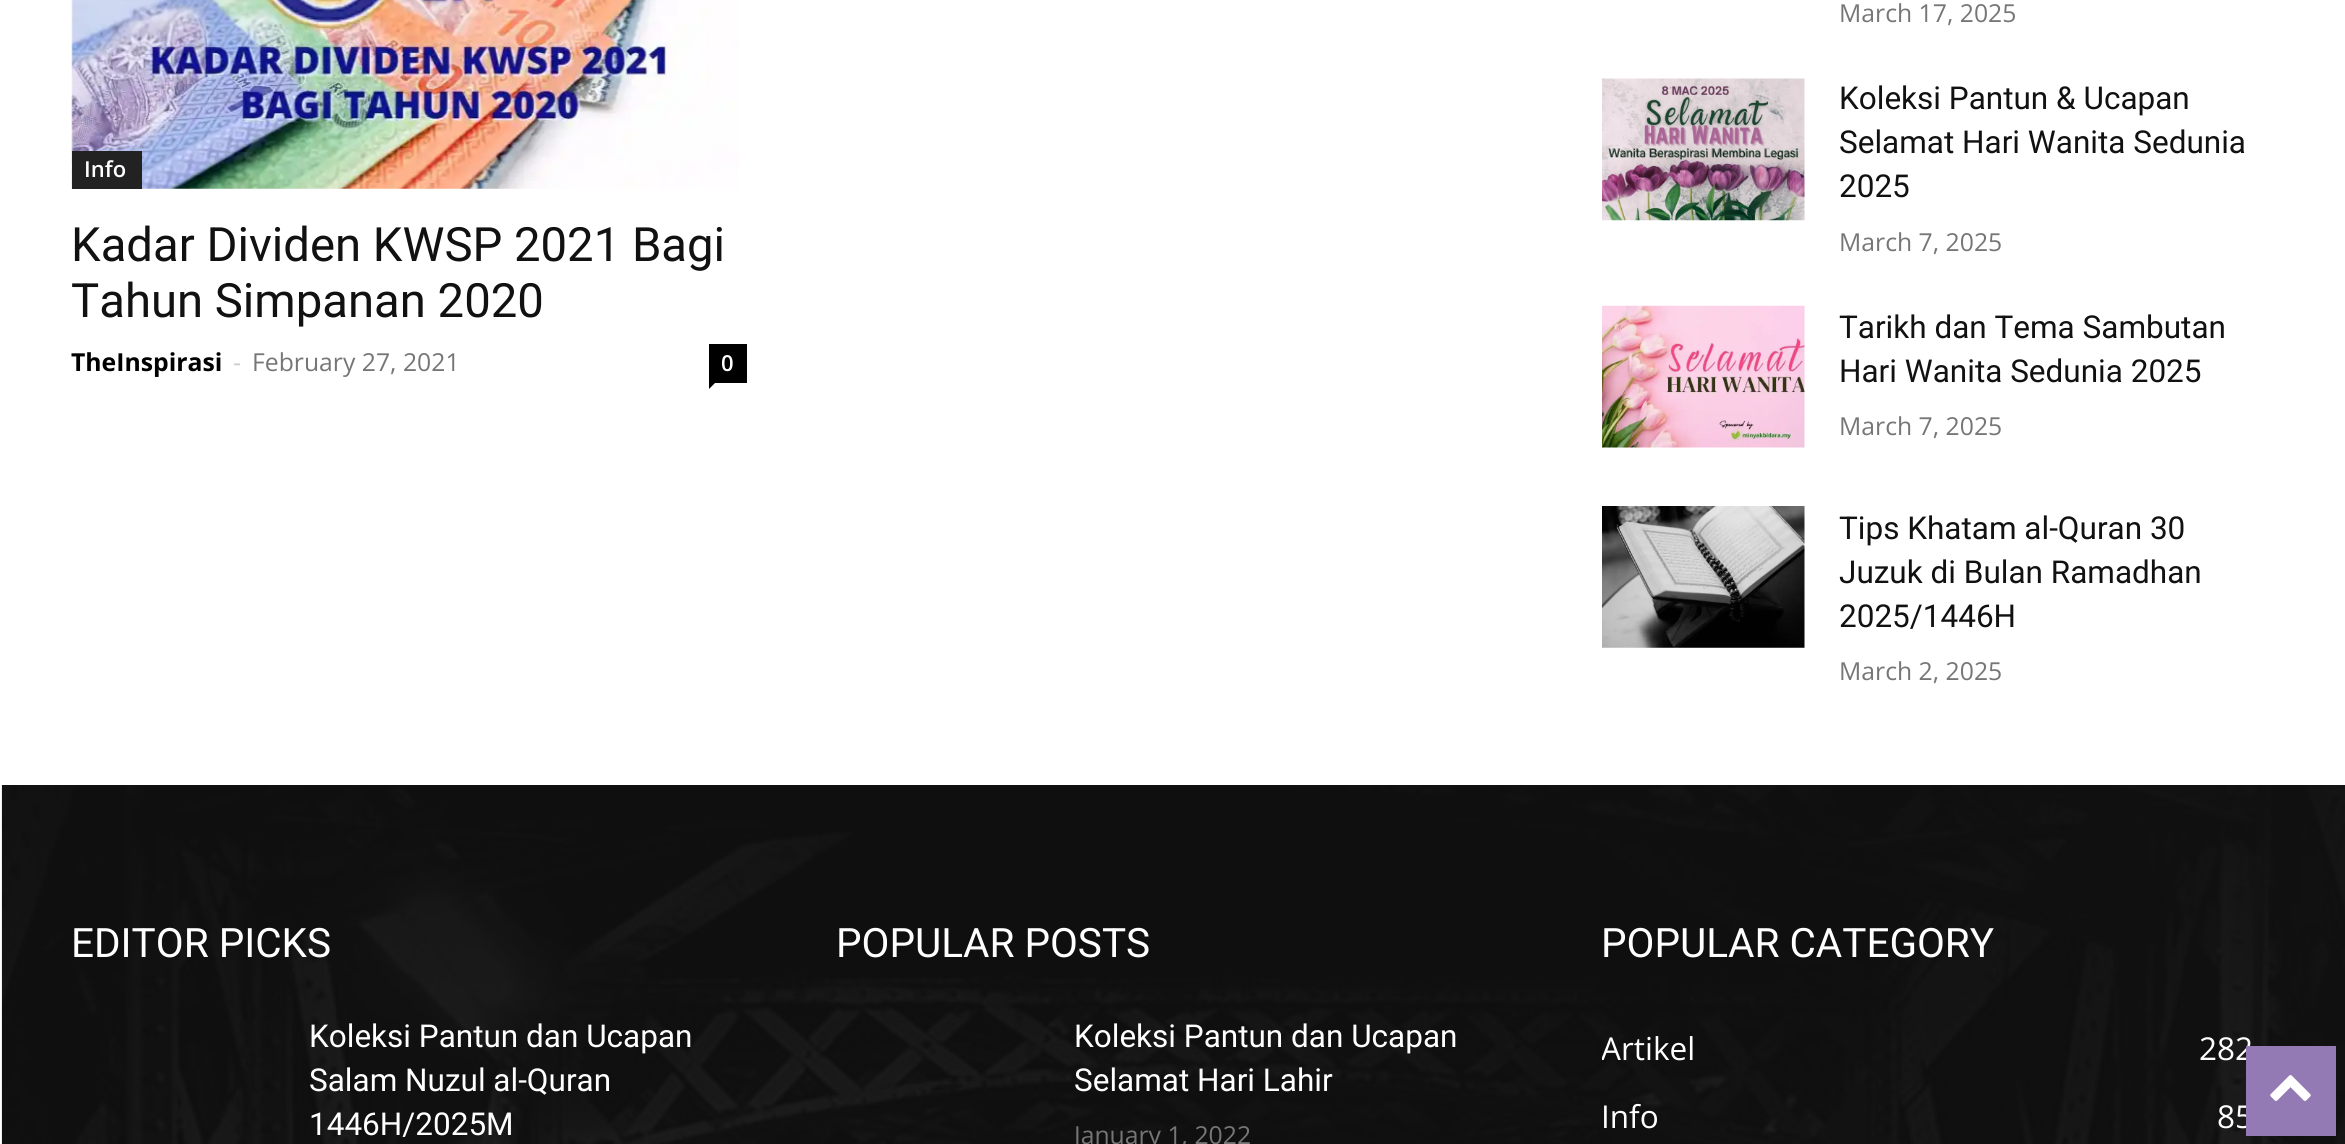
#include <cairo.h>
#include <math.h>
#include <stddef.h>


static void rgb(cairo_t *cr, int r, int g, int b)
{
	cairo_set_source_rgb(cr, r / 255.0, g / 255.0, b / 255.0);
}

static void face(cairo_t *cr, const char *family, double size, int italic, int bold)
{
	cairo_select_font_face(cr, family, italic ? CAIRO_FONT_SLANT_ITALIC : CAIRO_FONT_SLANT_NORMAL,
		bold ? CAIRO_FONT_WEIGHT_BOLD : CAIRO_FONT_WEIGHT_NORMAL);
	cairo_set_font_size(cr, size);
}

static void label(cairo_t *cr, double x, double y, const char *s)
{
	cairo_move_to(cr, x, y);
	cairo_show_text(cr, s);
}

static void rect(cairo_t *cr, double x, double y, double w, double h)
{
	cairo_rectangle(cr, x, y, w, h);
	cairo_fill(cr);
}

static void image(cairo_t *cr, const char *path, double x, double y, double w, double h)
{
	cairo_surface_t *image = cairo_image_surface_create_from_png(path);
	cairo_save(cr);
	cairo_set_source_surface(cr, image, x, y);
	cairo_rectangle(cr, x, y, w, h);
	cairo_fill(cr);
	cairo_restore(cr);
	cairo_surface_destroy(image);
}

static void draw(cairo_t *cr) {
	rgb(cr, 255, 255, 255);
	cairo_paint(cr);
	image(cr, "image0.png", 71, 0, 668, 189);
	rgb(cr, 34, 34, 34);
	rect(cr, 72, 151, 70, 38);
	face(cr, "Open Sans SemiBold", 22, 0, 0);
	rgb(cr, 255, 255, 255);
	label(cr, 84, 177, "Info");
	face(cr, "Roboto", 47.25, 0, 0);
	rgb(cr, 17, 17, 17);
	label(cr, 71, 261, "Kadar Dividen KWSP 2021 Bagi");
	label(cr, 71, 317, "Tahun Simpanan 2020");
	face(cr, "Open Sans", 24.75, 0, 1);
	rgb(cr, 0, 0, 0);
	label(cr, 71, 371, "TheInspirasi");
	face(cr, "Open Sans", 24.75, 0, 0);
	rgb(cr, 204, 204, 204);
	label(cr, 233, 371, "-");
	rgb(cr, 118, 118, 118);
	label(cr, 252, 371, "February 27, 2021");
	rgb(cr, 0, 0, 0);
	rect(cr, 709, 344, 38, 39);
	face(cr, "Open Sans SemiBold", 22, 0, 0);
	rgb(cr, 255, 255, 255);
	label(cr, 721, 371, "0");
	rgb(cr, 0, 0, 0);
	cairo_new_path(cr);
	cairo_move_to(cr, 709, 382.5);
	cairo_line_to(cr, 715.5, 382.5);
	cairo_line_to(cr, 709, 389);
	cairo_close_path(cr);
	cairo_fill(cr);
	face(cr, "Open Sans", 24.75, 0, 0);
	rgb(cr, 118, 118, 118);
	label(cr, 1839, 22, "March 17, 2025");
	image(cr, "image1.png", 1602, 78, 203, 143);
	face(cr, "Roboto", 31.5, 0, 0);
	rgb(cr, 17, 17, 17);
	label(cr, 1839, 109, "Koleksi Pantun & Ucapan");
	label(cr, 1839, 153, "Selamat Hari Wanita Sedunia");
	label(cr, 1839, 197, "2025");
	face(cr, "Open Sans", 24.75, 0, 0);
	rgb(cr, 118, 118, 118);
	label(cr, 1839, 251, "March 7, 2025");
	image(cr, "image2.png", 1602, 305, 203, 143);
	face(cr, "Roboto", 31.5, 0, 0);
	rgb(cr, 17, 17, 17);
	label(cr, 1839, 338, "Tarikh dan Tema Sambutan");
	label(cr, 1839, 382, "Hari Wanita Sedunia 2025");
	face(cr, "Open Sans", 24.75, 0, 0);
	rgb(cr, 118, 118, 118);
	label(cr, 1839, 435, "March 7, 2025");
	image(cr, "image3.png", 1602, 506, 203, 142);
	face(cr, "Roboto", 31.5, 0, 0);
	rgb(cr, 17, 17, 17);
	label(cr, 1839, 539, "Tips Khatam al-Quran 30");
	label(cr, 1839, 583, "Juzuk di Bulan Ramadhan");
	label(cr, 1839, 627, "2025/1446H");
	face(cr, "Open Sans", 24.75, 0, 0);
	rgb(cr, 118, 118, 118);
	label(cr, 1839, 680, "March 2, 2025");
	rgb(cr, 17, 17, 17);
	rect(cr, 2, 785, 2343, 359);
	image(cr, "image4.png", 1, 785, 2344, 359);
	face(cr, "Roboto", 40.5, 0, 0);
	rgb(cr, 255, 255, 255);
	label(cr, 71, 957, "EDITOR PICKS");
	face(cr, "Roboto", 31.5, 0, 0);
	label(cr, 309, 1047, "Koleksi Pantun dan Ucapan");
	label(cr, 309, 1091, "Salam Nuzul al-Quran");
	label(cr, 309, 1135, "1446H/2025M");
	face(cr, "Roboto", 40.5, 0, 0);
	label(cr, 836, 957, "POPULAR POSTS");
	face(cr, "Roboto", 31.5, 0, 0);
	label(cr, 1074, 1047, "Koleksi Pantun dan Ucapan");
	label(cr, 1074, 1091, "Selamat Hari Lahir");
	face(cr, "Open Sans", 24.75, 0, 0);
	rgb(cr, 118, 118, 118);
	label(cr, 1074, 1144, "January 1, 2022");
	face(cr, "Roboto", 40.5, 0, 0);
	rgb(cr, 255, 255, 255);
	label(cr, 1601, 957, "POPULAR CATEGORY");
	cairo_save(cr);
	cairo_rectangle(cr, 1602, 907, 675, 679);
	cairo_clip(cr);
	face(cr, "Open Sans", 31.5, 0, 0);
	label(cr, 1601, 1060, "Artikel");
	cairo_restore(cr);
	face(cr, "Open Sans", 31.5, 0, 0);
	label(cr, 2199, 1060, "282");
	label(cr, 1601, 1128, "Info");
	label(cr, 2217, 1128, "85");
	rgb(cr, 148, 122, 180);
	rect(cr, 2246, 1046, 90, 90);
	image(cr, "image5.png", 2270, 1075, 41, 26);
}

int main(void) {
	cairo_surface_t *surface = cairo_image_surface_create(CAIRO_FORMAT_RGB24, 2345, 1144);
	cairo_t *cr = cairo_create(surface);
	cairo_font_options_t *options = cairo_font_options_create();
	cairo_font_options_set_hint_metrics(options, CAIRO_HINT_METRICS_OFF);
	cairo_font_options_set_hint_style(options, CAIRO_HINT_STYLE_NONE);
	cairo_set_font_options(cr, options);
	cairo_set_miter_limit(cr, 4);
	draw(cr);
	cairo_surface_write_to_png(surface, "render.png");
	cairo_font_options_destroy(options);
	cairo_destroy(cr);
	cairo_surface_destroy(surface);
	return 0;
}
